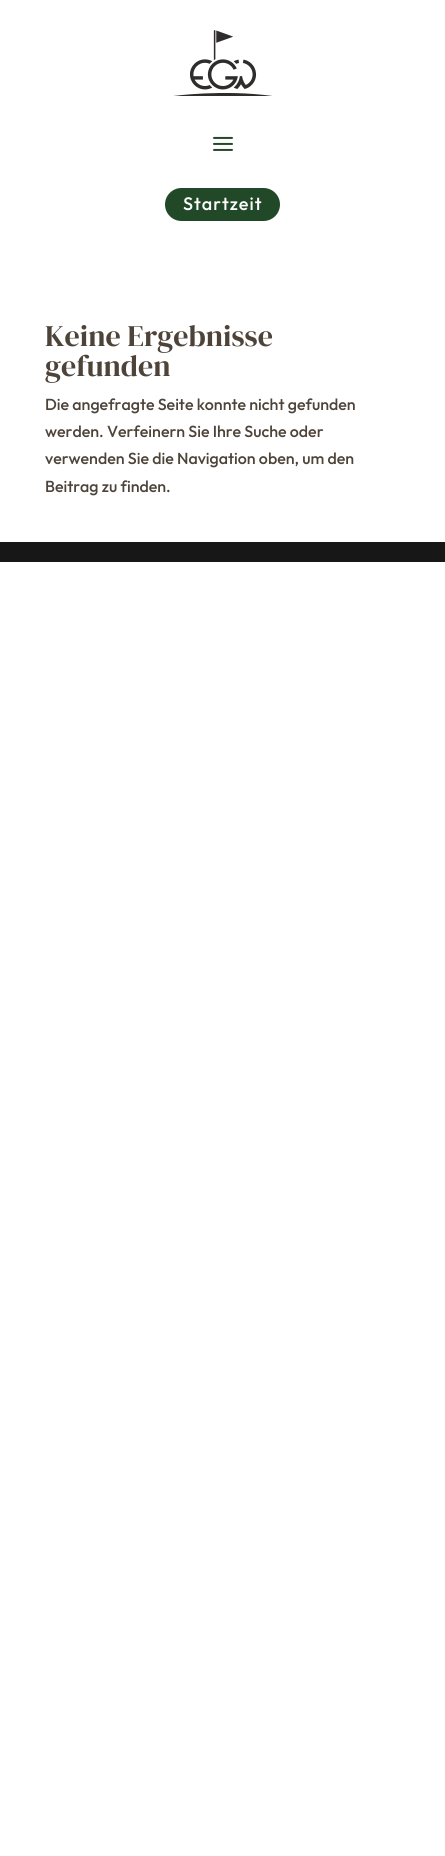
#include <cairo.h>
#include <math.h>
#include <stddef.h>


static void rgb(cairo_t *cr, int r, int g, int b)
{
	cairo_set_source_rgb(cr, r / 255.0, g / 255.0, b / 255.0);
}

static void face(cairo_t *cr, const char *family, double size, int italic, int bold)
{
	cairo_select_font_face(cr, family, italic ? CAIRO_FONT_SLANT_ITALIC : CAIRO_FONT_SLANT_NORMAL,
		bold ? CAIRO_FONT_WEIGHT_BOLD : CAIRO_FONT_WEIGHT_NORMAL);
	cairo_set_font_size(cr, size);
}

static void label(cairo_t *cr, double x, double y, const char *s)
{
	cairo_move_to(cr, x, y);
	cairo_show_text(cr, s);
}

static void tracked(cairo_t *cr, double x, double y, const char *s, double letter, double word)
{
	cairo_move_to(cr, x, y);
	while (*s) {
		char ch[5] = {0};
		int n = 0;
		do ch[n++] = *s++; while ((*s & 0xC0) == 0x80);
		cairo_show_text(cr, ch);
		cairo_rel_move_to(cr, letter + word * (*ch == ' '), 0);
	}
}

static void rect(cairo_t *cr, double x, double y, double w, double h)
{
	cairo_rectangle(cr, x, y, w, h);
	cairo_fill(cr);
}

static void rrect(cairo_t *cr, double x, double y, double w, double h, double r)
{
	cairo_new_sub_path(cr);
	cairo_arc(cr, x + w - r, y + h - r, r, 0, M_PI / 2);
	cairo_arc(cr, x + r, y + h - r, r, M_PI / 2, M_PI);
	cairo_arc(cr, x + r, y + r, r, M_PI, 1.5 * M_PI);
	cairo_arc(cr, x + w - r, y + r, r, 1.5 * M_PI, 2 * M_PI);
	cairo_close_path(cr);
}

static void image(cairo_t *cr, const char *path, double x, double y, double w, double h)
{
	cairo_surface_t *image = cairo_image_surface_create_from_png(path);
	cairo_save(cr);
	cairo_set_source_surface(cr, image, x, y);
	cairo_rectangle(cr, x, y, w, h);
	cairo_fill(cr);
	cairo_restore(cr);
	cairo_surface_destroy(image);
}

static void draw(cairo_t *cr) {
	rgb(cr, 255, 255, 255);
	cairo_paint(cr);
	image(cr, "image0.png", 173, 30, 99, 66);
	image(cr, "image1.png", 213, 136, 20, 15);
	rgb(cr, 33, 73, 40);
	rrect(cr, 165, 188, 115, 33, 16.5);
	cairo_fill(cr);
	face(cr, "Outfit Medium", 18, 0, 0);
	rgb(cr, 255, 255, 255);
	tracked(cr, 183, 210, "Startzeit", 1, 0);
	face(cr, "DM Serif Display", 30, 0, 0);
	rgb(cr, 77, 67, 57);
	label(cr, 45, 346, "Keine Ergebnisse");
	label(cr, 45, 376, "gefunden");
	face(cr, "Outfit Medium", 16, 0, 0);
	label(cr, 45, 410, "Die angefragte Seite konnte nicht gefunden");
	label(cr, 45, 437, "werden. Verfeinern Sie Ihre Suche oder");
	label(cr, 45, 464, "verwenden Sie die Navigation oben, um den");
	label(cr, 45, 492, "Beitrag zu finden.");
	rgb(cr, 23, 23, 23);
	rect(cr, 0, 542, 445, 20);
}

int main(void) {
	cairo_surface_t *surface = cairo_image_surface_create(CAIRO_FORMAT_RGB24, 445, 1856);
	cairo_t *cr = cairo_create(surface);
	cairo_font_options_t *options = cairo_font_options_create();
	cairo_font_options_set_hint_metrics(options, CAIRO_HINT_METRICS_OFF);
	cairo_font_options_set_hint_style(options, CAIRO_HINT_STYLE_NONE);
	cairo_set_font_options(cr, options);
	cairo_set_miter_limit(cr, 4);
	draw(cr);
	cairo_surface_write_to_png(surface, "render.png");
	cairo_font_options_destroy(options);
	cairo_destroy(cr);
	cairo_surface_destroy(surface);
	return 0;
}
